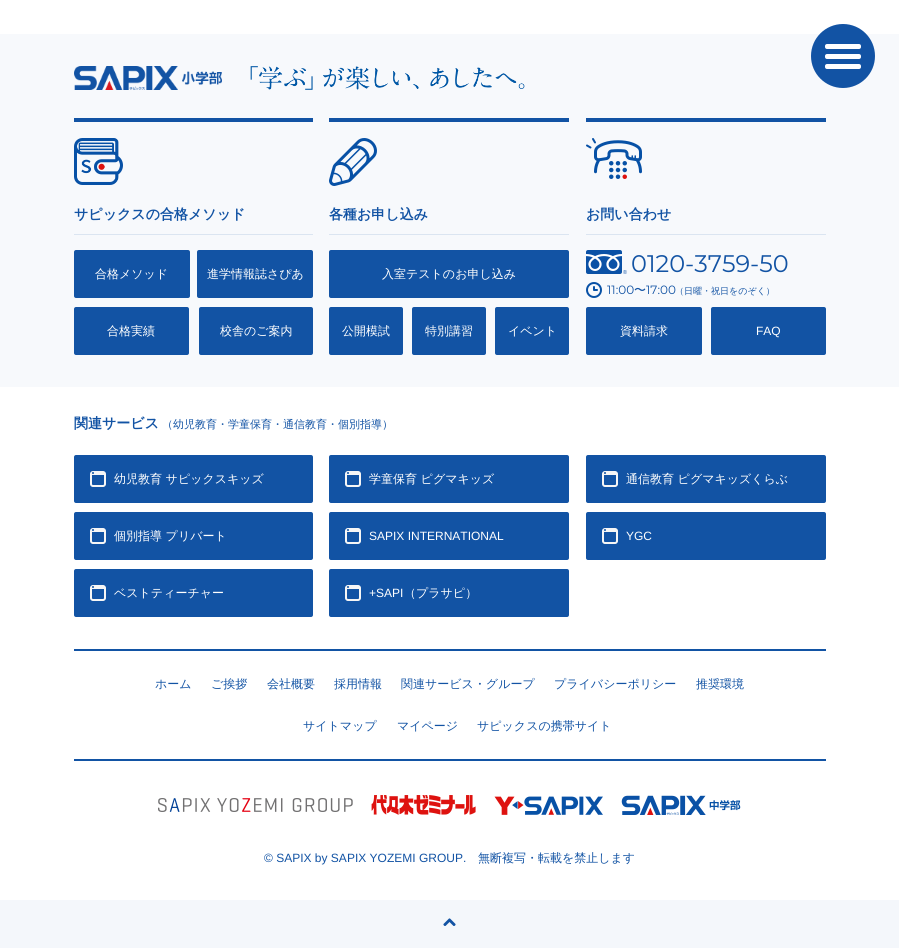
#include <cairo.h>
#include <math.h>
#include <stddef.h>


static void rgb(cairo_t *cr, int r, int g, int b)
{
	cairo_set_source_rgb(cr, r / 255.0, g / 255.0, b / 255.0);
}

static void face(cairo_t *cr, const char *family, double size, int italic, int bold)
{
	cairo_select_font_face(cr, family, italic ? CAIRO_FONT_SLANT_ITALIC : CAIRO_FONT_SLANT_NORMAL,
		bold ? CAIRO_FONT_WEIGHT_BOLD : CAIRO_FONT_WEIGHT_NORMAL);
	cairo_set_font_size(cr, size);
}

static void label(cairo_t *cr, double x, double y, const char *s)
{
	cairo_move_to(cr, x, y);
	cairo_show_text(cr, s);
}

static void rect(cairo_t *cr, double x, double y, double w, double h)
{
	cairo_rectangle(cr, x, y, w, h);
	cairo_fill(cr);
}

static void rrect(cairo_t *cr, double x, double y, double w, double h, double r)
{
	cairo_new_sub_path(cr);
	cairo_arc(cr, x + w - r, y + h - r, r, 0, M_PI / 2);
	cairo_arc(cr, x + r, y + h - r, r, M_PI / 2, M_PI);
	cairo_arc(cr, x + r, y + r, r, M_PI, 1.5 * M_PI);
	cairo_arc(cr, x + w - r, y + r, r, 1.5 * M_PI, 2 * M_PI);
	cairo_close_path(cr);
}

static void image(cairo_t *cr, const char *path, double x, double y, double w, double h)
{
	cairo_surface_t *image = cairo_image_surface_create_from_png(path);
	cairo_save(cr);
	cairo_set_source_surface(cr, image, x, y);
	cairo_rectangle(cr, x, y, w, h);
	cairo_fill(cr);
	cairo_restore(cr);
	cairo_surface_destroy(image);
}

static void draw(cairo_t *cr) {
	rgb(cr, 255, 255, 255);
	cairo_paint(cr);
	rgb(cr, 247, 249, 252);
	rect(cr, 0, 34, 899, 353);
	rgb(cr, 18, 83, 164);
	cairo_arc(cr, 843, 56, 32, 0, 2 * M_PI);
	cairo_fill(cr);
	image(cr, "image0.png", 825, 44, 36, 25);
	image(cr, "image1.png", 74, 66, 148, 24);
	image(cr, "image2.png", 250, 66, 275, 24);
	rgb(cr, 219, 229, 241);
	rect(cr, 74, 234, 239, 1);
	image(cr, "image3.png", 74, 138, 49, 47);
	rgb(cr, 18, 83, 164);
	rect(cr, 74, 118, 239, 4);
	face(cr, "WenQuanYi Zen Hei", 14, 0, 1);
	label(cr, 74, 219, "サピックスの合格メソッド");
	rrect(cr, 74, 250, 116, 48, 2);
	cairo_fill(cr);
	face(cr, "WenQuanYi Zen Hei Medium", 12, 0, 0);
	rgb(cr, 255, 255, 255);
	label(cr, 95, 278, "合格メソッド");
	rgb(cr, 18, 83, 164);
	rrect(cr, 197, 250, 116, 48, 2);
	cairo_fill(cr);
	rgb(cr, 255, 255, 255);
	label(cr, 207, 278, "進学情報誌さぴあ");
	rgb(cr, 18, 83, 164);
	rrect(cr, 74, 307, 115, 48, 2);
	cairo_fill(cr);
	rgb(cr, 255, 255, 255);
	label(cr, 107, 335, "合格実績");
	rgb(cr, 18, 83, 164);
	rrect(cr, 199, 307, 114, 48, 2);
	cairo_fill(cr);
	rgb(cr, 255, 255, 255);
	label(cr, 220, 335, "校舎のご案内");
	rgb(cr, 219, 229, 241);
	rect(cr, 329, 234, 240, 1);
	image(cr, "image4.png", 329, 138, 48, 48);
	rgb(cr, 18, 83, 164);
	rect(cr, 329, 118, 240, 4);
	face(cr, "WenQuanYi Zen Hei", 14, 0, 1);
	label(cr, 329, 219, "各種お申し込み");
	rrect(cr, 329, 250, 240, 48, 2);
	cairo_fill(cr);
	face(cr, "WenQuanYi Zen Hei Medium", 12, 0, 0);
	rgb(cr, 255, 255, 255);
	label(cr, 382, 278, "入室テストのお申し込み");
	rgb(cr, 18, 83, 164);
	rrect(cr, 329, 307, 74, 48, 2);
	cairo_fill(cr);
	rgb(cr, 255, 255, 255);
	label(cr, 342, 335, "公開模試");
	rgb(cr, 18, 83, 164);
	rrect(cr, 412, 307, 74, 48, 2);
	cairo_fill(cr);
	rgb(cr, 255, 255, 255);
	label(cr, 425, 335, "特別講習");
	rgb(cr, 18, 83, 164);
	rrect(cr, 495, 307, 74, 48, 2);
	cairo_fill(cr);
	rgb(cr, 255, 255, 255);
	label(cr, 508, 335, "イベント");
	rgb(cr, 219, 229, 241);
	rect(cr, 586, 234, 240, 1);
	image(cr, "image5.png", 586, 138, 56, 41);
	rgb(cr, 18, 83, 164);
	rect(cr, 586, 118, 240, 4);
	face(cr, "WenQuanYi Zen Hei", 14, 0, 1);
	label(cr, 586, 219, "お問い合わせ");
	image(cr, "image6.png", 586, 250, 41, 24);
	face(cr, "Montserrat Thin", 24, 0, 0);
	label(cr, 631, 272, "0120-3759-50");
	image(cr, "image7.png", 586, 282, 16, 16);
	face(cr, "Montserrat Thin", 12, 0, 0);
	label(cr, 607, 294, "11:00");
	face(cr, "WenQuanYi Zen Hei Medium", 12, 0, 0);
	label(cr, 634, 294, "〜");
	face(cr, "Montserrat Thin", 12, 0, 0);
	label(cr, 646, 294, "17:00");
	face(cr, "WenQuanYi Zen Hei Medium", 9, 0, 0);
	label(cr, 675, 294, "（日曜・祝日をのぞく）");
	rrect(cr, 586, 307, 116, 48, 2);
	cairo_fill(cr);
	face(cr, "WenQuanYi Zen Hei Medium", 12, 0, 0);
	rgb(cr, 255, 255, 255);
	label(cr, 620, 335, "資料請求");
	rgb(cr, 18, 83, 164);
	rrect(cr, 711, 307, 115, 48, 2);
	cairo_fill(cr);
	face(cr, "Liberation Sans", 12, 0, 0);
	rgb(cr, 255, 255, 255);
	label(cr, 756, 335, "FAQ");
	face(cr, "WenQuanYi Zen Hei", 14, 0, 1);
	rgb(cr, 18, 83, 164);
	label(cr, 74, 428, "関連サービス");
	face(cr, "WenQuanYi Zen Hei Medium", 11, 0, 0);
	label(cr, 162, 428, "（幼児教育・学童保育・通信教育・個別指導）");
	rrect(cr, 74, 455, 239, 48, 2);
	cairo_fill(cr);
	image(cr, "image8.png", 90, 471, 16, 16);
	face(cr, "WenQuanYi Zen Hei Medium", 12, 0, 0);
	rgb(cr, 255, 255, 255);
	label(cr, 114, 483, "幼児教育 サピックスキッズ");
	rgb(cr, 18, 83, 164);
	rrect(cr, 329, 455, 240, 48, 2);
	cairo_fill(cr);
	image(cr, "image8.png", 345, 471, 16, 16);
	rgb(cr, 255, 255, 255);
	label(cr, 369, 483, "学童保育 ピグマキッズ");
	rgb(cr, 18, 83, 164);
	rrect(cr, 586, 455, 240, 48, 2);
	cairo_fill(cr);
	image(cr, "image8.png", 602, 471, 16, 16);
	rgb(cr, 255, 255, 255);
	label(cr, 626, 483, "通信教育 ピグマキッズくらぶ");
	rgb(cr, 18, 83, 164);
	rrect(cr, 74, 512, 239, 48, 2);
	cairo_fill(cr);
	image(cr, "image8.png", 90, 528, 16, 16);
	rgb(cr, 255, 255, 255);
	label(cr, 114, 540, "個別指導 プリバート");
	rgb(cr, 18, 83, 164);
	rrect(cr, 329, 512, 240, 48, 2);
	cairo_fill(cr);
	image(cr, "image8.png", 345, 528, 16, 16);
	face(cr, "Liberation Sans", 12, 0, 0);
	rgb(cr, 255, 255, 255);
	label(cr, 369, 540, "SAPIX INTERNATIONAL");
	rgb(cr, 18, 83, 164);
	rrect(cr, 586, 512, 240, 48, 2);
	cairo_fill(cr);
	image(cr, "image8.png", 602, 528, 16, 16);
	rgb(cr, 255, 255, 255);
	label(cr, 626, 540, "YGC");
	rgb(cr, 18, 83, 164);
	rrect(cr, 74, 569, 239, 48, 2);
	cairo_fill(cr);
	image(cr, "image8.png", 90, 585, 16, 16);
	face(cr, "WenQuanYi Zen Hei Medium", 12, 0, 0);
	rgb(cr, 255, 255, 255);
	label(cr, 114, 597, "ベストティーチャー");
	rgb(cr, 18, 83, 164);
	rrect(cr, 329, 569, 240, 48, 2);
	cairo_fill(cr);
	image(cr, "image8.png", 345, 585, 16, 16);
	face(cr, "Liberation Sans", 12, 0, 0);
	rgb(cr, 255, 255, 255);
	label(cr, 369, 597, "+SAPI");
	face(cr, "WenQuanYi Zen Hei Medium", 12, 0, 0);
	label(cr, 404, 597, "（プラサピ）");
	rgb(cr, 18, 83, 164);
	rect(cr, 74, 649, 752, 2);
	rect(cr, 74, 759, 752, 2);
	label(cr, 155, 688, "ホーム");
	label(cr, 211, 688, "ご挨拶");
	label(cr, 267, 688, "会社概要");
	label(cr, 334, 688, "採用情報");
	label(cr, 401, 688, "関連サービス・グループ");
	label(cr, 554, 688, "プライバシーポリシー");
	label(cr, 696, 688, "推奨環境");
	label(cr, 303, 730, "サイトマップ");
	label(cr, 397, 730, "マイページ");
	label(cr, 477, 730, "サピックスの携帯サイト");
	image(cr, "image9.png", 158, 798, 195, 14);
	image(cr, "image10.png", 371, 795, 105, 20);
	image(cr, "image11.png", 494, 796, 109, 19);
	image(cr, "image12.png", 621, 795, 120, 20);
	face(cr, "Liberation Sans", 12, 0, 0);
	label(cr, 264, 862, "© SAPIX by SAPIX YOZEMI GROUP.");
	face(cr, "WenQuanYi Zen Hei Medium", 12, 0, 0);
	label(cr, 478, 862, "無断複写・転載を禁止します");
	rgb(cr, 244, 247, 251);
	rect(cr, 0, 900, 899, 48);
	image(cr, "image13.png", 443, 918, 13, 8);
}

int main(void) {
	cairo_surface_t *surface = cairo_image_surface_create(CAIRO_FORMAT_RGB24, 899, 948);
	cairo_t *cr = cairo_create(surface);
	cairo_font_options_t *options = cairo_font_options_create();
	cairo_font_options_set_hint_metrics(options, CAIRO_HINT_METRICS_OFF);
	cairo_font_options_set_hint_style(options, CAIRO_HINT_STYLE_NONE);
	cairo_set_font_options(cr, options);
	cairo_set_miter_limit(cr, 4);
	draw(cr);
	cairo_surface_write_to_png(surface, "render.png");
	cairo_font_options_destroy(options);
	cairo_destroy(cr);
	cairo_surface_destroy(surface);
	return 0;
}
